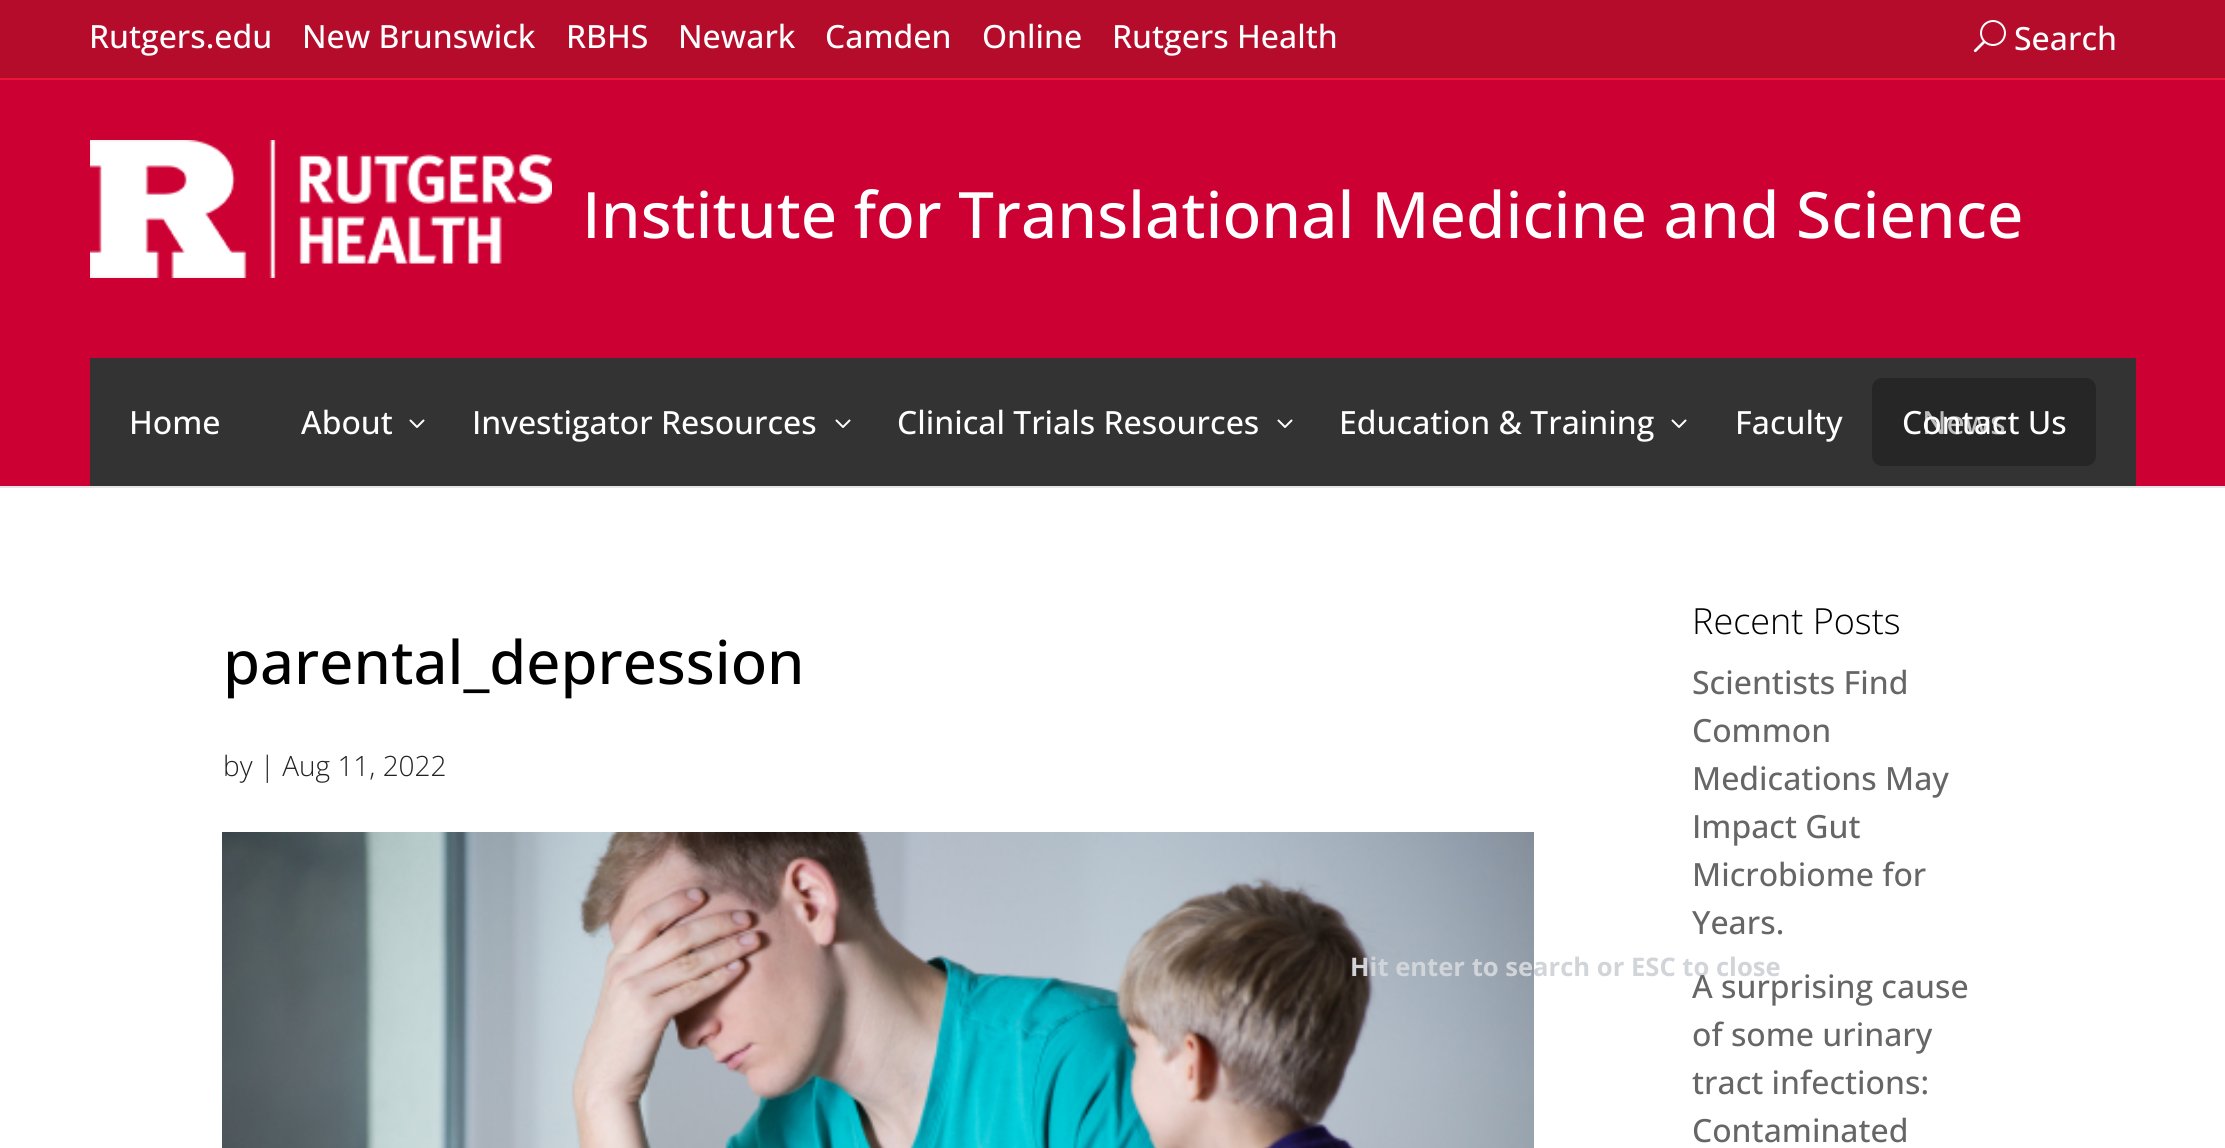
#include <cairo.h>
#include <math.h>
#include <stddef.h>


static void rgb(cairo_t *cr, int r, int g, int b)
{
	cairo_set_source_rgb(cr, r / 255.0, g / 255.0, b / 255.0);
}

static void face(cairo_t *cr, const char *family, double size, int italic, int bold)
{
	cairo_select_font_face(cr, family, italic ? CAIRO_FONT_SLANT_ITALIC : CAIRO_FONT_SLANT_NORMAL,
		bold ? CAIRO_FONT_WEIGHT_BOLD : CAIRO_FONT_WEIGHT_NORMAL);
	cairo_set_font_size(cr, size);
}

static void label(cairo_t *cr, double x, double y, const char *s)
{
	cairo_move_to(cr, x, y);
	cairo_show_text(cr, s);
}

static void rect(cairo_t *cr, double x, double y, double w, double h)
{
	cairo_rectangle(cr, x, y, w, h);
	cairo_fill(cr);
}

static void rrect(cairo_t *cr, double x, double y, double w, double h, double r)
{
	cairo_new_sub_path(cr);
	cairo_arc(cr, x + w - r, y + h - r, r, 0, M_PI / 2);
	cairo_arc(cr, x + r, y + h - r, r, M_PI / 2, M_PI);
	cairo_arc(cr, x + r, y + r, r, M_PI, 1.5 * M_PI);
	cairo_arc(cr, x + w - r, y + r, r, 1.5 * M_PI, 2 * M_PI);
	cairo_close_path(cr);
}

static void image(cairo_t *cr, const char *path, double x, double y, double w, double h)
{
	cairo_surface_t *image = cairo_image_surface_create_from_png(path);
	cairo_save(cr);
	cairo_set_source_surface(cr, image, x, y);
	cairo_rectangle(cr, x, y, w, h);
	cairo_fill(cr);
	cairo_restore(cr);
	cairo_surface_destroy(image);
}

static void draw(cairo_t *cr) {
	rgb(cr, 255, 255, 255);
	cairo_paint(cr);
	rgb(cr, 181, 12, 43);
	rect(cr, 0, 0, 2225, 78);
	rgb(cr, 239, 20, 60);
	rect(cr, 0, 78, 2225, 2);
	face(cr, "Open Sans Medium", 32, 0, 0);
	rgb(cr, 255, 255, 255);
	label(cr, 89, 48, "Rutgers.edu");
	label(cr, 302, 48, "New Brunswick");
	label(cr, 566, 48, "RBHS");
	label(cr, 678, 48, "Newark");
	label(cr, 825, 48, "Camden");
	label(cr, 982, 48, "Online");
	label(cr, 1112, 48, "Rutgers Health");
	image(cr, "image0.png", 1973, 20, 33, 33);
	label(cr, 2014, 50, "Search");
	image(cr, "image3.png", 222, 832, 1312, 316);
	face(cr, "Open Sans", 25.6, 0, 1);
	rgb(cr, 209, 212, 216);
	label(cr, 1350, 976, "Hit enter to search or ESC to close");
	rgb(cr, 230, 230, 230);
	rect(cr, 0, 486, 2225, 2);
	rgb(cr, 204, 0, 51);
	rect(cr, 0, 80, 2225, 406);
	image(cr, "image1.png", 90, 140, 462, 138);
	face(cr, "Open Sans Medium", 64, 0, 0);
	rgb(cr, 255, 255, 255);
	label(cr, 582, 238, "Institute for Translational Medicine and Science");
	rgb(cr, 51, 51, 51);
	rect(cr, 90, 358, 2046, 128);
	face(cr, "Open Sans Medium", 32, 0, 0);
	rgb(cr, 255, 255, 255);
	label(cr, 129, 434, "Home");
	label(cr, 301, 434, "About");
	image(cr, "image2.png", 409, 419, 16, 9);
	label(cr, 472, 434, "Investigator Resources");
	image(cr, "image2.png", 835, 419, 16, 9);
	label(cr, 897, 434, "Clinical Trials Resources");
	image(cr, "image2.png", 1277, 419, 16, 9);
	label(cr, 1339, 434, "Education & Training");
	image(cr, "image2.png", 1671, 419, 16, 9);
	label(cr, 1735, 434, "Faculty");
	label(cr, 1922, 434, "News");
	cairo_set_source_rgba(cr, 0, 0, 0, 0.25);
	rrect(cr, 1872, 378, 224, 88, 10);
	cairo_fill(cr);
	rgb(cr, 255, 255, 255);
	label(cr, 1902, 434, "Contact Us");
	face(cr, "Open Sans Medium", 60, 0, 0);
	rgb(cr, 0, 0, 0);
	label(cr, 223, 684, "parental_depression");
	face(cr, "Open Sans Light", 28, 0, 0);
	rgb(cr, 34, 34, 34);
	label(cr, 223, 776, "by | Aug 11, 2022");
	face(cr, "Open Sans Light", 36, 0, 0);
	rgb(cr, 0, 0, 0);
	label(cr, 1692, 634, "Recent Posts");
	face(cr, "Open Sans Medium", 32, 0, 0);
	rgb(cr, 102, 102, 102);
	label(cr, 1692, 694, "Scientists Find");
	label(cr, 1692, 742, "Common");
	label(cr, 1692, 790, "Medications May");
	label(cr, 1692, 838, "Impact Gut");
	label(cr, 1692, 886, "Microbiome for");
	label(cr, 1692, 934, "Years.");
	label(cr, 1692, 998, "A surprising cause");
	label(cr, 1692, 1046, "of some urinary");
	label(cr, 1692, 1094, "tract infections:");
	label(cr, 1692, 1142, "Contaminated");
}

int main(void) {
	cairo_surface_t *surface = cairo_image_surface_create(CAIRO_FORMAT_RGB24, 2225, 1148);
	cairo_t *cr = cairo_create(surface);
	cairo_font_options_t *options = cairo_font_options_create();
	cairo_font_options_set_hint_metrics(options, CAIRO_HINT_METRICS_OFF);
	cairo_font_options_set_hint_style(options, CAIRO_HINT_STYLE_NONE);
	cairo_set_font_options(cr, options);
	cairo_set_miter_limit(cr, 4);
	draw(cr);
	cairo_surface_write_to_png(surface, "render.png");
	cairo_font_options_destroy(options);
	cairo_destroy(cr);
	cairo_surface_destroy(surface);
	return 0;
}
